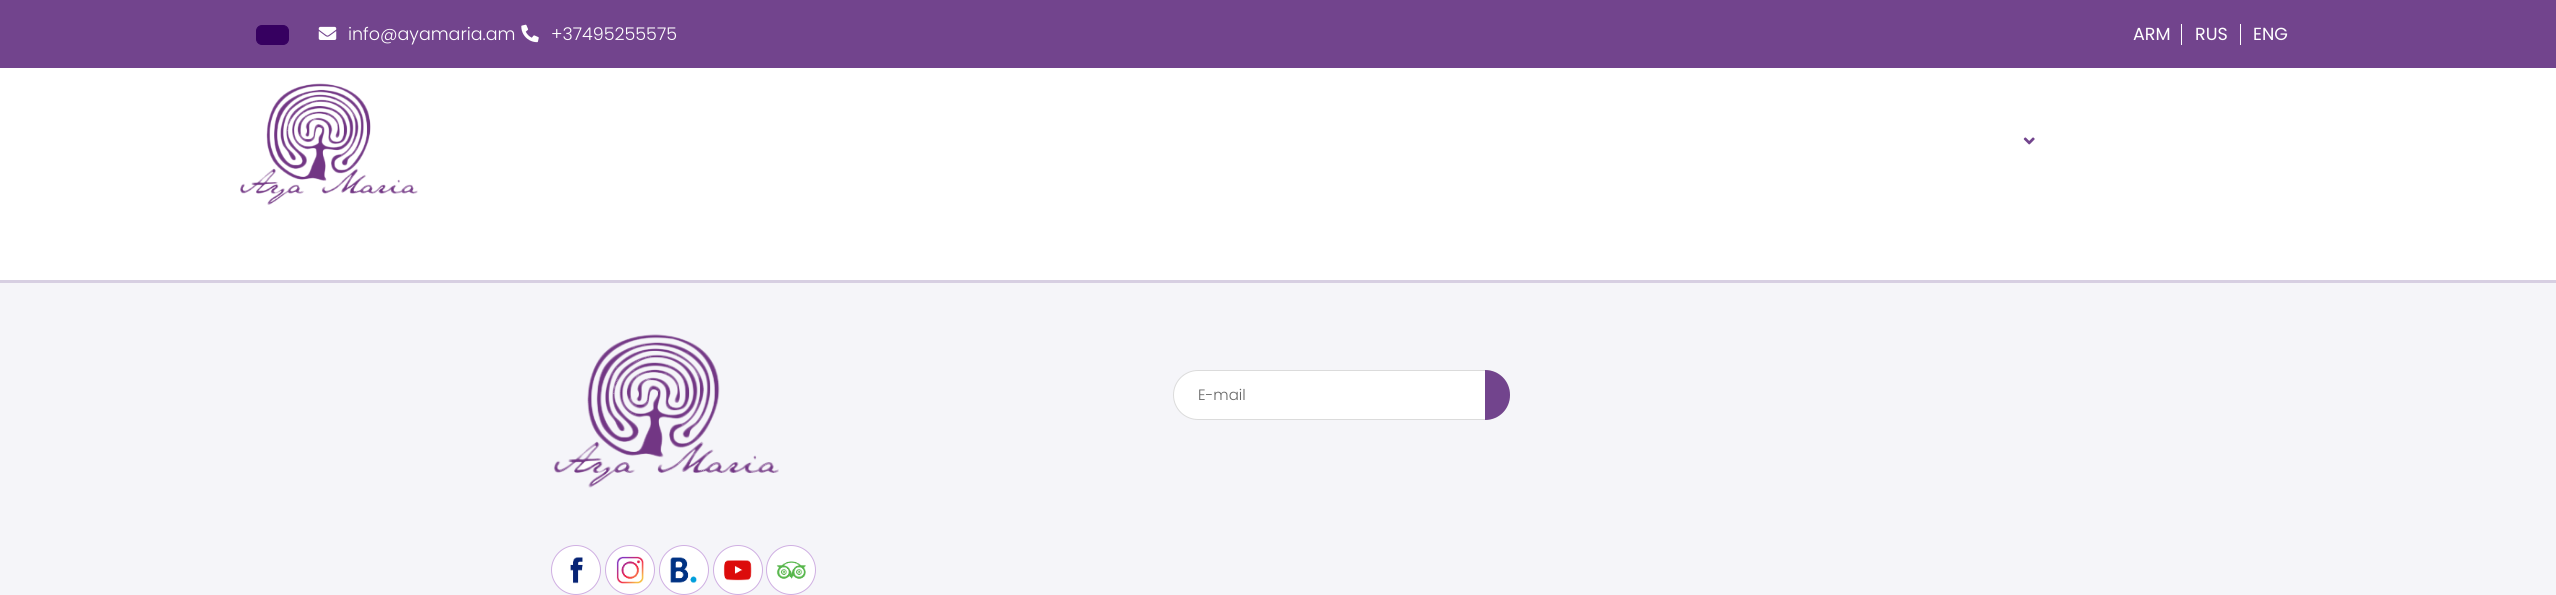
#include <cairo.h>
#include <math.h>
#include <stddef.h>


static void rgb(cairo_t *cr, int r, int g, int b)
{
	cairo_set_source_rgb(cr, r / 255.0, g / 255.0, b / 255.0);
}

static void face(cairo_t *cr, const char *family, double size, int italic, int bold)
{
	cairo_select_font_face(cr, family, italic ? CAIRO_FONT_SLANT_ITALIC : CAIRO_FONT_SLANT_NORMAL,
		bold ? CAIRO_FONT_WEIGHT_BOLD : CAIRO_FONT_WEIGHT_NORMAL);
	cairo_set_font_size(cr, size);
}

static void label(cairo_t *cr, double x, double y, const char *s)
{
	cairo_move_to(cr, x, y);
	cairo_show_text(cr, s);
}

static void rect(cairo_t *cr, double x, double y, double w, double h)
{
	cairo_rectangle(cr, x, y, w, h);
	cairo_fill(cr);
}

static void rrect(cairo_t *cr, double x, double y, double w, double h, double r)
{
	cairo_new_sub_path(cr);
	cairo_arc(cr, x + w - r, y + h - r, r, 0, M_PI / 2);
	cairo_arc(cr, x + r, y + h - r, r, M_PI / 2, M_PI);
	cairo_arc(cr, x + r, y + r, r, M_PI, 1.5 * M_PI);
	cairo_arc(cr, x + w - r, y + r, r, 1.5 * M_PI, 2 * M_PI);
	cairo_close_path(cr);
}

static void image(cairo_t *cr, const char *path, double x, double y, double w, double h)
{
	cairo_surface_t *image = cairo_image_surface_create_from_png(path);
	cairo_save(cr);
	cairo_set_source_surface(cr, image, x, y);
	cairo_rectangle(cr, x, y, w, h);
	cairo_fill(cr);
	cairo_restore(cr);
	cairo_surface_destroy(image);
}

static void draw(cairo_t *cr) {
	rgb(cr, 255, 255, 255);
	cairo_paint(cr);
	rgb(cr, 114, 68, 141);
	rect(cr, 0, 0, 2556, 68);
	rgb(cr, 54, 0, 96);
	rrect(cr, 256.5, 25.5, 32, 19, 5.5);
	cairo_fill_preserve(cr);
	cairo_set_line_width(cr, 1);
	cairo_stroke(cr);
	image(cr, "image0.png", 318, 26, 19, 14);
	face(cr, "Poppins Light", 17.5, 0, 0);
	rgb(cr, 255, 255, 255);
	label(cr, 348, 40, "info@ayamaria.am");
	image(cr, "image1.png", 521, 24, 18, 19);
	label(cr, 551, 40, "+37495255575");
	face(cr, "Poppins", 17.5, 0, 0);
	label(cr, 2133, 40, "ARM");
	rect(cr, 2181, 24, 1, 21);
	label(cr, 2195, 40, "RUS");
	rect(cr, 2240, 24, 1, 21);
	label(cr, 2253, 40, "ENG");
	image(cr, "image2.png", 240, 83, 178, 122);
	image(cr, "image3.png", 2023, 137, 12, 8);
	rgb(cr, 245, 245, 249);
	rect(cr, 0, 283, 2556, 312);
	rgb(cr, 215, 207, 226);
	rect(cr, 0, 280, 2556, 3);
	image(cr, "image4.png", 553, 334, 226, 154);
	rgb(cr, 255, 255, 255);
	cairo_arc(cr, 576, 570, 24.5, 0, 2 * M_PI);
	cairo_fill_preserve(cr);
	rgb(cr, 207, 175, 226);
	cairo_stroke(cr);
	image(cr, "image5.png", 570, 557, 13, 27);
	rgb(cr, 255, 255, 255);
	cairo_arc(cr, 630, 570, 24.5, 0, 2 * M_PI);
	cairo_fill_preserve(cr);
	rgb(cr, 207, 175, 226);
	cairo_stroke(cr);
	image(cr, "image6.png", 616, 556, 28, 28);
	rgb(cr, 255, 255, 255);
	cairo_arc(cr, 684, 570, 24.5, 0, 2 * M_PI);
	cairo_fill_preserve(cr);
	rgb(cr, 207, 175, 226);
	cairo_stroke(cr);
	image(cr, "image7.png", 670, 557, 27, 26);
	rgb(cr, 255, 255, 255);
	cairo_arc(cr, 738, 570, 24.5, 0, 2 * M_PI);
	cairo_fill_preserve(cr);
	rgb(cr, 207, 175, 226);
	cairo_stroke(cr);
	image(cr, "image8.png", 723, 560, 29, 21);
	rgb(cr, 255, 255, 255);
	cairo_arc(cr, 791, 570, 24.5, 0, 2 * M_PI);
	cairo_fill_preserve(cr);
	rgb(cr, 207, 175, 226);
	cairo_stroke(cr);
	image(cr, "image9.png", 776, 561, 30, 18);
	rgb(cr, 255, 255, 255);
	rrect(cr, 1173.5, 370.5, 336, 49, 24.5);
	cairo_fill_preserve(cr);
	rgb(cr, 219, 219, 219);
	cairo_stroke(cr);
	face(cr, "Poppins Light", 15, 0, 0);
	rgb(cr, 102, 102, 102);
	label(cr, 1198, 400, "E-mail");
	rgb(cr, 114, 68, 141);
	cairo_new_path(cr);
	cairo_move_to(cr, 1485, 370);
	cairo_curve_to(cr, 1499, 370, 1510, 381, 1510, 395);
	cairo_curve_to(cr, 1510, 409, 1499, 420, 1485, 420);
	cairo_close_path(cr);
	cairo_fill(cr);
}

int main(void) {
	cairo_surface_t *surface = cairo_image_surface_create(CAIRO_FORMAT_RGB24, 2556, 595);
	cairo_t *cr = cairo_create(surface);
	cairo_font_options_t *options = cairo_font_options_create();
	cairo_font_options_set_hint_metrics(options, CAIRO_HINT_METRICS_OFF);
	cairo_font_options_set_hint_style(options, CAIRO_HINT_STYLE_NONE);
	cairo_set_font_options(cr, options);
	cairo_set_miter_limit(cr, 4);
	draw(cr);
	cairo_surface_write_to_png(surface, "render.png");
	cairo_font_options_destroy(options);
	cairo_destroy(cr);
	cairo_surface_destroy(surface);
	return 0;
}
